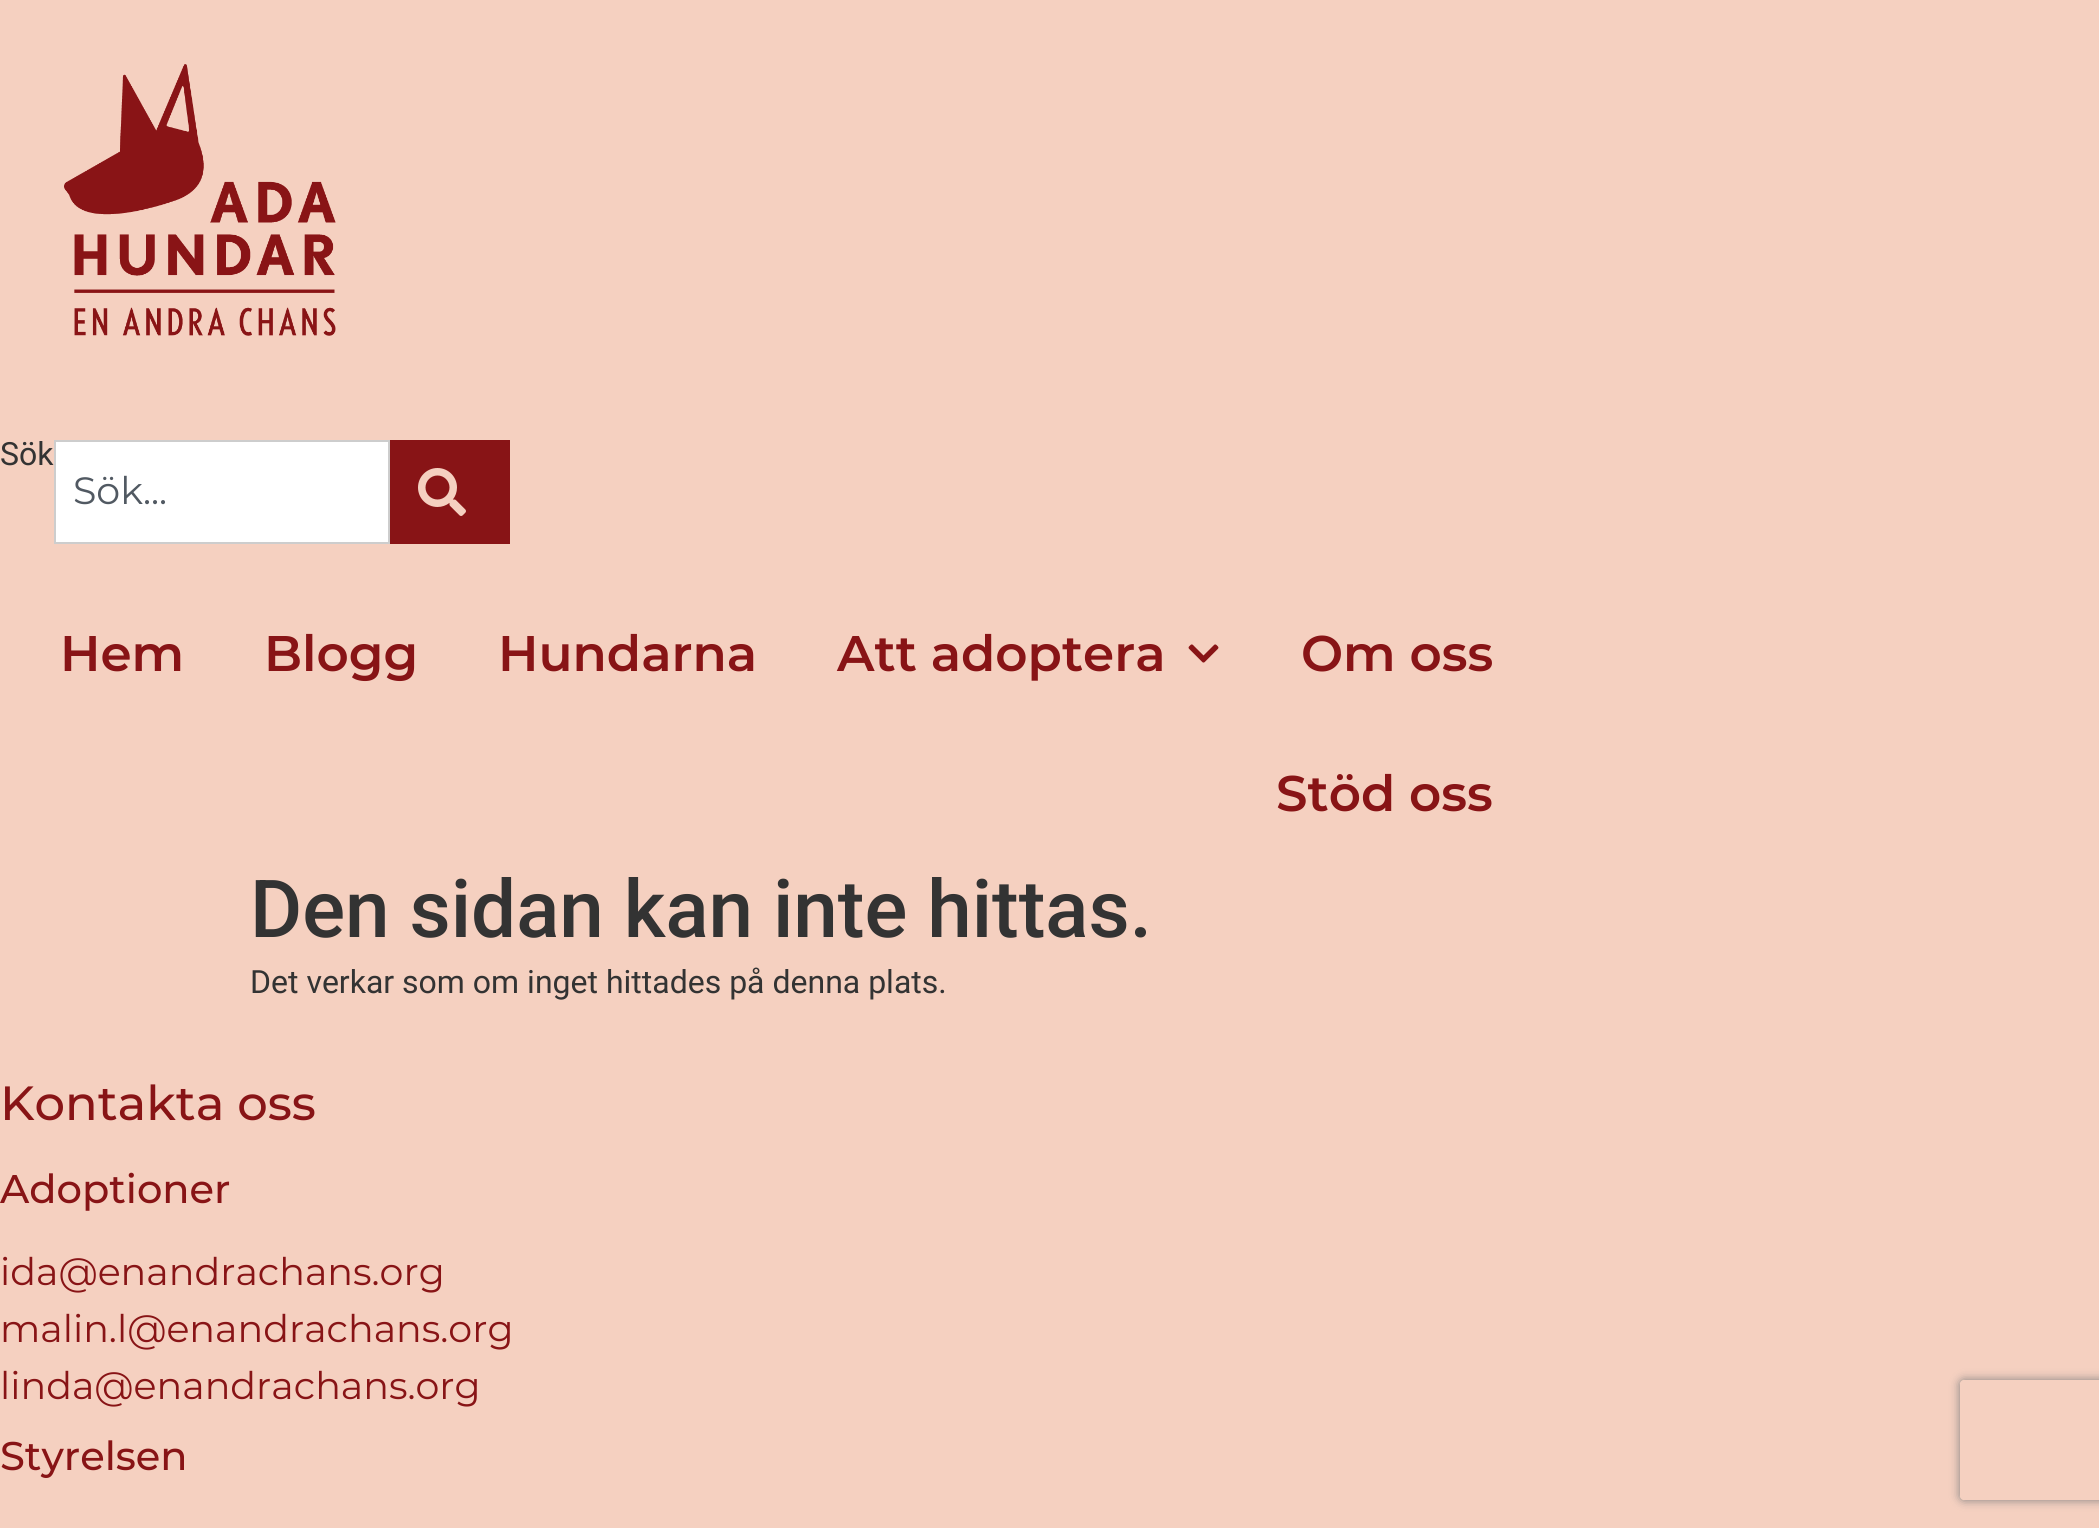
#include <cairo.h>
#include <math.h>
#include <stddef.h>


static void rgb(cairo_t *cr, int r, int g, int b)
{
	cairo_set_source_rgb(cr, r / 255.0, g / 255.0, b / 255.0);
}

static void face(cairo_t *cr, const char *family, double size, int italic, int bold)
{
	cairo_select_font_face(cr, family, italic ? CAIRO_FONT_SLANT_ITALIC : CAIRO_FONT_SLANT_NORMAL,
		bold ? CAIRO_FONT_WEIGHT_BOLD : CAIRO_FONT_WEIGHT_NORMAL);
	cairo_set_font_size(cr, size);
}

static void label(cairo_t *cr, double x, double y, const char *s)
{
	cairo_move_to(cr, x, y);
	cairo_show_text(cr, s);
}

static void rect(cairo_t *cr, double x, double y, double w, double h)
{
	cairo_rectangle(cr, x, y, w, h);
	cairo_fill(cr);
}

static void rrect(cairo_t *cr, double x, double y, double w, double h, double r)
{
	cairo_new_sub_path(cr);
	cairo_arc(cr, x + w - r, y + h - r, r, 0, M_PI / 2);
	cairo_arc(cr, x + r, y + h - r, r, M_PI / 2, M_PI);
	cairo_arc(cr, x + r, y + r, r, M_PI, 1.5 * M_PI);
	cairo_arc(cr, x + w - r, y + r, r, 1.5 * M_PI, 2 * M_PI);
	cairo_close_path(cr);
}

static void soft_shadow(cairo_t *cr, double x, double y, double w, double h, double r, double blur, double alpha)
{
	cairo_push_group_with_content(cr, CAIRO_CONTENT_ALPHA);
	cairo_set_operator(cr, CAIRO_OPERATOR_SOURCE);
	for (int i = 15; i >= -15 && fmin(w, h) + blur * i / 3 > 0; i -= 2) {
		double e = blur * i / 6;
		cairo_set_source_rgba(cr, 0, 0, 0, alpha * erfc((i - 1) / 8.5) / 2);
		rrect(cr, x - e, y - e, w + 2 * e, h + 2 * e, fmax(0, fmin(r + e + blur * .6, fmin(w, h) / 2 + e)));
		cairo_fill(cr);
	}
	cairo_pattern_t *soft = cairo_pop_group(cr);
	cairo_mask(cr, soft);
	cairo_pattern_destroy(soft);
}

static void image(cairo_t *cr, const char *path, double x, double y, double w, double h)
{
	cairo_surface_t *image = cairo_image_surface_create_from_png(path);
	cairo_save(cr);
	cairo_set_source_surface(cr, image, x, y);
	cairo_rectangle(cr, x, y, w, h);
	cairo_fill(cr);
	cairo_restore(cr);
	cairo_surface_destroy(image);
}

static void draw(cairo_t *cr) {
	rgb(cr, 245, 208, 192);
	cairo_paint(cr);
	image(cr, "image0.png", 64, 64, 272, 272);
	face(cr, "Roboto", 32, 0, 0);
	rgb(cr, 51, 51, 51);
	label(cr, 0, 465, "Sök");
	rgb(cr, 136, 20, 22);
	rect(cr, 390, 440, 120, 104);
	image(cr, "image1.png", 418, 468, 48, 48);
	rgb(cr, 255, 255, 255);
	cairo_rectangle(cr, 55, 441, 334, 102);
	cairo_fill_preserve(cr);
	rgb(cr, 205, 205, 205);
	cairo_stroke(cr);
	face(cr, "Montserrat", 38, 0, 0);
	rgb(cr, 81, 89, 98);
	label(cr, 73, 504, "Sök...");
	face(cr, "Montserrat SemiBold", 50, 0, 0);
	rgb(cr, 136, 20, 22);
	label(cr, 60, 671, "Hem");
	label(cr, 264, 671, "Blogg");
	label(cr, 498, 671, "Hundarna");
	label(cr, 837, 671, "Att adoptera");
	image(cr, "image2.png", 1188, 644, 31, 19);
	label(cr, 1301, 671, "Om oss");
	label(cr, 1276, 811, "Stöd oss");
	face(cr, "Roboto Medium", 80, 0, 0);
	rgb(cr, 51, 51, 51);
	label(cr, 250, 937, "Den sidan kan inte hittas.");
	face(cr, "Roboto", 32, 0, 0);
	label(cr, 250, 993, "Det verkar som om inget hittades på denna plats.");
	face(cr, "Montserrat Medium", 48, 0, 0);
	rgb(cr, 136, 20, 22);
	label(cr, 0, 1120, "Kontakta oss");
	face(cr, "Montserrat Medium", 40, 0, 0);
	label(cr, 0, 1203, "Adoptioner");
	face(cr, "Montserrat", 38, 0, 0);
	label(cr, 0, 1285, "ida@enandrachans.org");
	label(cr, 0, 1342, "malin.l@enandrachans.org");
	label(cr, 0, 1399, "linda@enandrachans.org");
	face(cr, "Montserrat Medium", 40, 0, 0);
	label(cr, 0, 1470, "Styrelsen");
	cairo_save(cr);
	cairo_set_fill_rule(cr, CAIRO_FILL_RULE_EVEN_ODD);
	cairo_new_path(cr);
	cairo_move_to(cr, 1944, 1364);
	cairo_line_to(cr, 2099, 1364);
	cairo_line_to(cr, 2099, 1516);
	cairo_line_to(cr, 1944, 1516);
	cairo_close_path(cr);
	cairo_move_to(cr, 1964, 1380);
	cairo_line_to(cr, 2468, 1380);
	cairo_curve_to(cr, 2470, 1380, 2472, 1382, 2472, 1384);
	cairo_line_to(cr, 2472, 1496);
	cairo_curve_to(cr, 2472, 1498, 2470, 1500, 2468, 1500);
	cairo_line_to(cr, 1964, 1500);
	cairo_curve_to(cr, 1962, 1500, 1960, 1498, 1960, 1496);
	cairo_line_to(cr, 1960, 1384);
	cairo_curve_to(cr, 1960, 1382, 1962, 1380, 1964, 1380);
	cairo_close_path(cr);
	cairo_clip(cr);
	rgb(cr, 128, 128, 128);
	soft_shadow(cr, 1960, 1380, 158, 120, 4, 5, 1);
	cairo_restore(cr);
}

int main(void) {
	cairo_surface_t *surface = cairo_image_surface_create(CAIRO_FORMAT_RGB24, 2099, 1528);
	cairo_t *cr = cairo_create(surface);
	cairo_font_options_t *options = cairo_font_options_create();
	cairo_font_options_set_hint_metrics(options, CAIRO_HINT_METRICS_OFF);
	cairo_font_options_set_hint_style(options, CAIRO_HINT_STYLE_NONE);
	cairo_set_font_options(cr, options);
	cairo_set_miter_limit(cr, 4);
	draw(cr);
	cairo_surface_write_to_png(surface, "render.png");
	cairo_font_options_destroy(options);
	cairo_destroy(cr);
	cairo_surface_destroy(surface);
	return 0;
}
